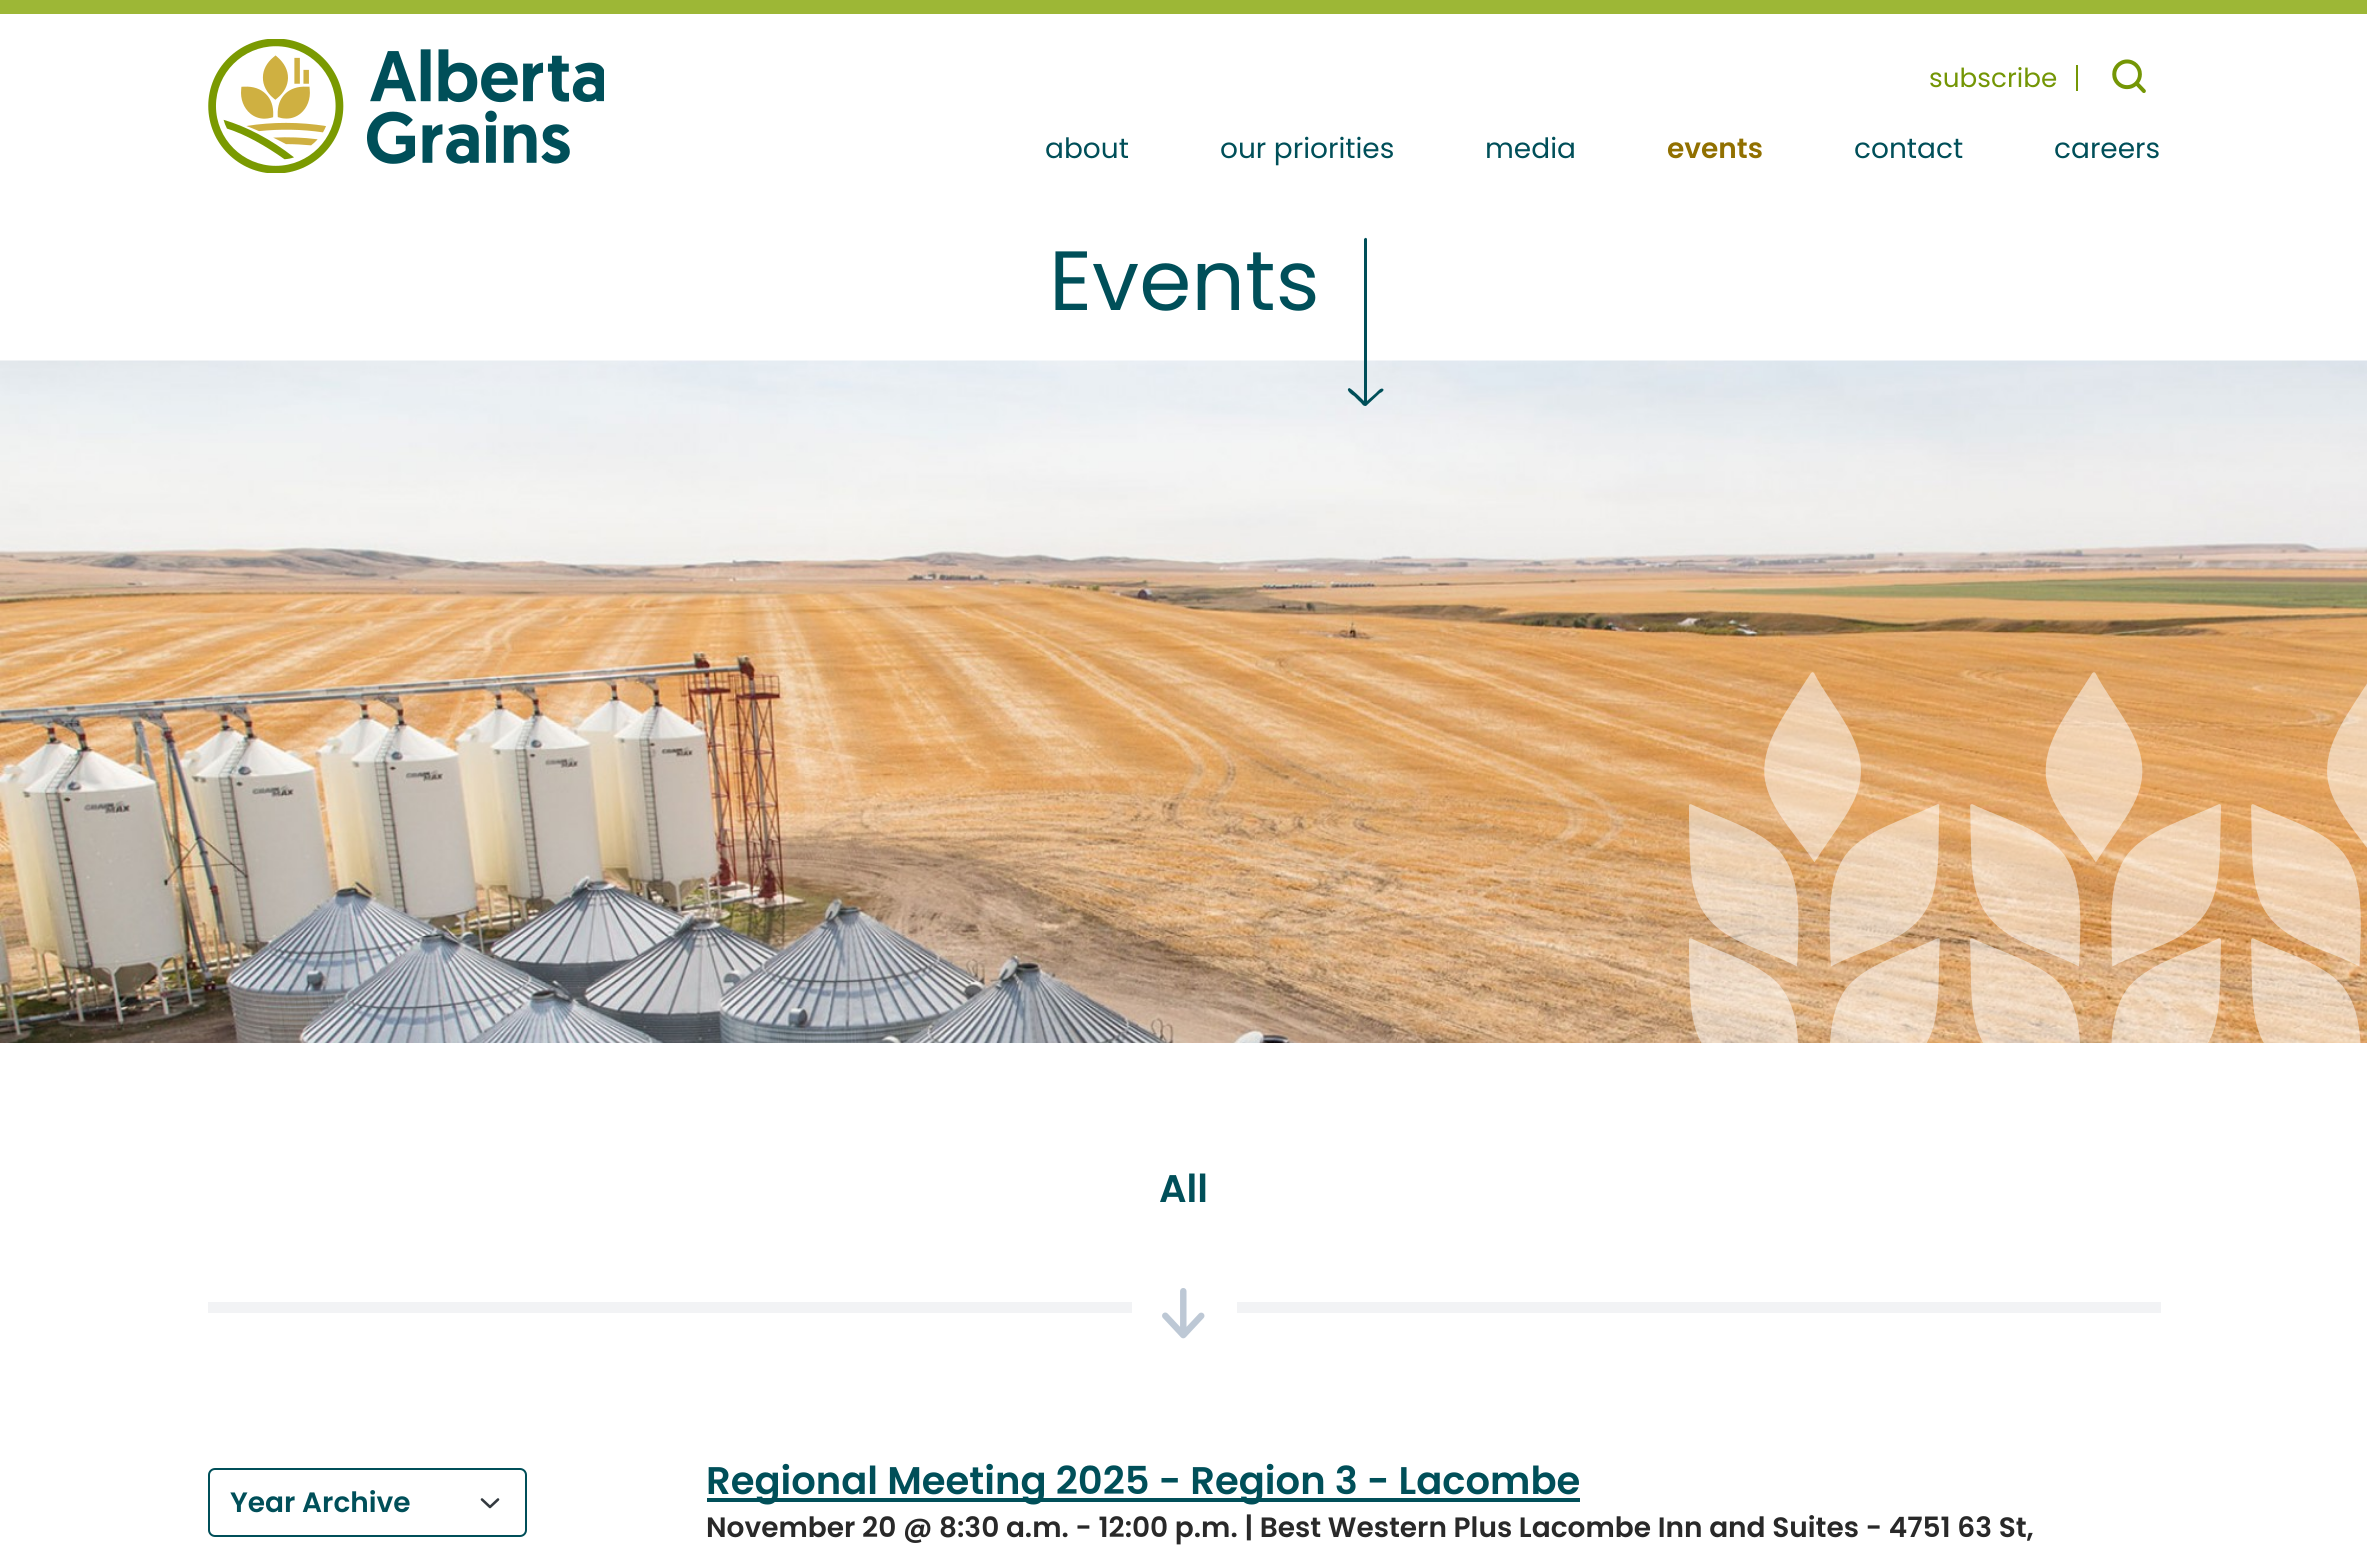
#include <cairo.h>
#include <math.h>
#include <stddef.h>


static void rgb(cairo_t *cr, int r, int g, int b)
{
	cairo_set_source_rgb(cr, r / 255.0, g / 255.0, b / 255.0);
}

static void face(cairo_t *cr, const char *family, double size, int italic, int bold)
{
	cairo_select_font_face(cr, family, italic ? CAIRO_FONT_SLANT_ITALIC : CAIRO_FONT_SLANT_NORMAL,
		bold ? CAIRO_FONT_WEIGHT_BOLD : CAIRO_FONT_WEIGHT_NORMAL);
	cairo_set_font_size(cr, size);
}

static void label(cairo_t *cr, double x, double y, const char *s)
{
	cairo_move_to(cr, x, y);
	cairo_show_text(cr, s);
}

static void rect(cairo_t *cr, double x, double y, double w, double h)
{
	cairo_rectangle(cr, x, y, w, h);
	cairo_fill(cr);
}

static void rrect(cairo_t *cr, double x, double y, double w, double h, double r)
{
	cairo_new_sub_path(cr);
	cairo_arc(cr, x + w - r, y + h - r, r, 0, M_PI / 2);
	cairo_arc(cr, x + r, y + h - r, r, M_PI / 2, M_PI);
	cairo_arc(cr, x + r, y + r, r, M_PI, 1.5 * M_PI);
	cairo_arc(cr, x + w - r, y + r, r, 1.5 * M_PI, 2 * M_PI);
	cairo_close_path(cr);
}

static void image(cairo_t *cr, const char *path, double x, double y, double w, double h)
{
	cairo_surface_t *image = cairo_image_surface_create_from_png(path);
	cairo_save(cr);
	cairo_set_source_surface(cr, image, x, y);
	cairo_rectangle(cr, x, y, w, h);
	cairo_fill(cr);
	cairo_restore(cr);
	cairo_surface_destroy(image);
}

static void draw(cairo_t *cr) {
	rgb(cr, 255, 255, 255);
	cairo_paint(cr);
	rgb(cr, 157, 183, 54);
	rect(cr, 0, 0, 2367, 14);
	image(cr, "image0.png", 208, 39, 396, 134);
	rgb(cr, 116, 150, 5);
	rect(cr, 2076, 65, 2, 26);
	face(cr, "Poppins", 26.25, 0, 0);
	label(cr, 1929, 87, "subscribe");
	image(cr, "image1.png", 2112, 59, 34, 34);
	face(cr, "Poppins", 28, 0, 0);
	rgb(cr, 0, 79, 89);
	label(cr, 1045, 158, "about");
	label(cr, 1220, 158, "our priorities");
	label(cr, 1485, 158, "media");
	face(cr, "Poppins SemiBold", 28, 0, 0);
	rgb(cr, 145, 112, 0);
	label(cr, 1667, 158, "events");
	face(cr, "Poppins", 28, 0, 0);
	rgb(cr, 0, 79, 89);
	label(cr, 1854, 158, "contact");
	label(cr, 2054, 158, "careers");
	face(cr, "Poppins", 84, 0, 0);
	label(cr, 1049, 310, "Events");
	image(cr, "image2.png", 0, 360, 2367, 683);
	cairo_new_path(cr);
	cairo_move_to(cr, 1364, 239);
	cairo_line_to(cr, 1364, 401);
	cairo_curve_to(cr, 1362, 399, 1351, 388, 1349, 388);
	cairo_line_to(cr, 1348, 389);
	cairo_curve_to(cr, 1347, 391, 1352, 395, 1354, 396);
	cairo_line_to(cr, 1359, 401);
	cairo_curve_to(cr, 1363, 404, 1362, 406, 1366, 406);
	cairo_line_to(cr, 1380, 393);
	cairo_curve_to(cr, 1381, 393, 1385, 390, 1383, 389);
	cairo_curve_to(cr, 1381, 387, 1377, 392, 1376, 393);
	cairo_line_to(cr, 1367, 401);
	cairo_line_to(cr, 1367, 239);
	cairo_curve_to(cr, 1366, 237, 1365, 238, 1364, 239);
	cairo_close_path(cr);
	cairo_fill(cr);
	image(cr, "image3.png", 1689, 672, 678, 371);
	rgb(cr, 242, 243, 245);
	rect(cr, 208, 1302, 1953, 11);
	face(cr, "Poppins SemiBold", 38.5, 0, 0);
	rgb(cr, 0, 79, 89);
	label(cr, 1159, 1202, "All");
	rgb(cr, 255, 255, 255);
	rect(cr, 1132, 1302, 105, 11);
	image(cr, "image4.png", 1162, 1288, 43, 51);
	cairo_new_path(cr);
	cairo_move_to(cr, 482, 1499.5);
	cairo_line_to(cr, 490, 1507);
	cairo_line_to(cr, 498, 1499.5);
	rgb(cr, 52, 58, 64);
	cairo_set_line_width(cr, 2.6);
	cairo_set_line_cap(cr, CAIRO_LINE_CAP_ROUND);
	cairo_set_line_join(cr, CAIRO_LINE_JOIN_ROUND);
	cairo_stroke(cr);
	rrect(cr, 209, 1469, 317, 67, 6);
	rgb(cr, 0, 79, 89);
	cairo_set_line_width(cr, 2);
	cairo_set_line_cap(cr, CAIRO_LINE_CAP_BUTT);
	cairo_set_line_join(cr, CAIRO_LINE_JOIN_MITER);
	cairo_stroke(cr);
	face(cr, "Poppins SemiBold", 28, 0, 0);
	label(cr, 230, 1512, "Year Archive");
	rect(cr, 707, 1498, 873, 4);
	face(cr, "Poppins SemiBold", 38.5, 0, 0);
	label(cr, 706, 1494, "Regional Meeting 2025 - Region 3 - Lacombe");
	face(cr, "Poppins SemiBold", 28, 0, 0);
	rgb(cr, 41, 41, 41);
	label(cr, 706, 1537, "November 20 @ 8:30 a.m. - 12:00 p.m. | Best Western Plus Lacombe Inn and Suites - 4751 63 St,");
}

int main(void) {
	cairo_surface_t *surface = cairo_image_surface_create(CAIRO_FORMAT_RGB24, 2367, 1568);
	cairo_t *cr = cairo_create(surface);
	cairo_font_options_t *options = cairo_font_options_create();
	cairo_font_options_set_hint_metrics(options, CAIRO_HINT_METRICS_OFF);
	cairo_font_options_set_hint_style(options, CAIRO_HINT_STYLE_NONE);
	cairo_set_font_options(cr, options);
	cairo_set_miter_limit(cr, 4);
	draw(cr);
	cairo_surface_write_to_png(surface, "render.png");
	cairo_font_options_destroy(options);
	cairo_destroy(cr);
	cairo_surface_destroy(surface);
	return 0;
}
